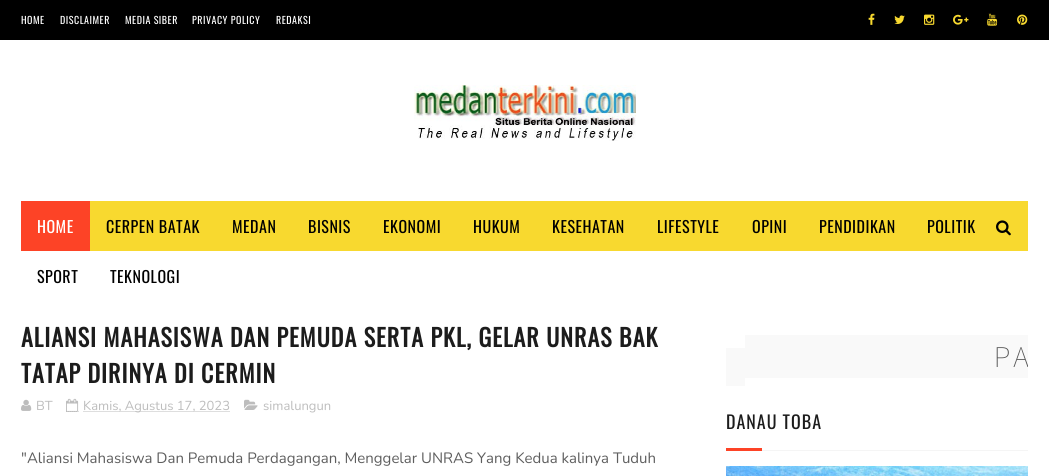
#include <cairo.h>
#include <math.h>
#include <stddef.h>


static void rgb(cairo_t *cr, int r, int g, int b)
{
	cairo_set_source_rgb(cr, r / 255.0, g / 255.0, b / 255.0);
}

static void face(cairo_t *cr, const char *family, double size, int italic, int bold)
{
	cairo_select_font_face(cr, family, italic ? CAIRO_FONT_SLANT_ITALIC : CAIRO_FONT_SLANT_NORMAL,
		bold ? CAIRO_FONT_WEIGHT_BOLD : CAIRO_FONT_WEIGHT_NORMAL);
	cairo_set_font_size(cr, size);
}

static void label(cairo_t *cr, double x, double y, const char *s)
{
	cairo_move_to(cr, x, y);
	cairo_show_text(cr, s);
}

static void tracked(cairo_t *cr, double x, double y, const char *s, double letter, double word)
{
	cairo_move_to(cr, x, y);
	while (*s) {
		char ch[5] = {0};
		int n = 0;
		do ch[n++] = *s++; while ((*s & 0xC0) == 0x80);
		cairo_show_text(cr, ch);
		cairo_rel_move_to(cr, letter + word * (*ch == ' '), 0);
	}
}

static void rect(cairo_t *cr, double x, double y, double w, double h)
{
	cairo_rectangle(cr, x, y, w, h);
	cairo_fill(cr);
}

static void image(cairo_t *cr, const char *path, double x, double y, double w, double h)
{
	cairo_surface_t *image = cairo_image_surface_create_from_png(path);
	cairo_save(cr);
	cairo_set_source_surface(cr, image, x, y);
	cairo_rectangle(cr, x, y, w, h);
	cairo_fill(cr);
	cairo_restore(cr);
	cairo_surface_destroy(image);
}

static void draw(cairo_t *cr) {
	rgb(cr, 255, 255, 255);
	cairo_paint(cr);
	rgb(cr, 0, 0, 0);
	rect(cr, 0, 0, 1049, 40);
	face(cr, "Oswald", 10, 0, 0);
	rgb(cr, 255, 255, 255);
	tracked(cr, 21, 24, "HOME", 0.5, 0);
	tracked(cr, 60, 24, "DISCLAIMER", 0.5, 0);
	tracked(cr, 125, 24, "MEDIA SIBER", 0.5, 0);
	tracked(cr, 192, 24, "PRIVACY POLICY", 0.5, 0);
	tracked(cr, 276, 24, "REDAKSI", 0.5, 0);
	image(cr, "image0.png", 868, 13, 7, 12);
	image(cr, "image1.png", 894, 15, 11, 9);
	image(cr, "image2.png", 924, 14, 11, 11);
	image(cr, "image3.png", 953, 14, 16, 11);
	image(cr, "image4.png", 987, 13, 11, 13);
	image(cr, "image5.png", 1017, 14, 11, 11);
	image(cr, "image6.png", 414, 85, 222, 56);
	rgb(cr, 248, 217, 47);
	rect(cr, 90, 201, 938, 50);
	rgb(cr, 253, 67, 38);
	rect(cr, 21, 201, 69, 50);
	face(cr, "Oswald", 16, 0, 0);
	rgb(cr, 255, 255, 255);
	tracked(cr, 37, 233, "HOME", 0.5, 0);
	rgb(cr, 0, 0, 0);
	tracked(cr, 106, 233, "CERPEN BATAK", 0.5, 0);
	tracked(cr, 232, 233, "MEDAN", 0.5, 0);
	tracked(cr, 308, 233, "BISNIS", 0.5, 0);
	tracked(cr, 383, 233, "EKONOMI", 0.5, 0);
	tracked(cr, 473, 233, "HUKUM", 0.5, 0);
	tracked(cr, 552, 233, "KESEHATAN", 0.5, 0);
	tracked(cr, 657, 233, "LIFESTYLE", 0.5, 0);
	tracked(cr, 752, 233, "OPINI", 0.5, 0);
	tracked(cr, 819, 233, "PENDIDIKAN", 0.5, 0);
	tracked(cr, 927, 233, "POLITIK", 0.5, 0);
	tracked(cr, 37, 283, "SPORT", 0.5, 0);
	tracked(cr, 110, 283, "TEKNOLOGI", 0.5, 0);
	image(cr, "image7.png", 996, 220, 15, 16);
	face(cr, "Oswald", 24, 0, 1);
	rgb(cr, 28, 28, 28);
	tracked(cr, 21, 347, "ALIANSI MAHASISWA DAN PEMUDA SERTA PKL, GELAR UNRAS BAK", 1, 0);
	tracked(cr, 21, 383, "TATAP DIRINYA DI CERMIN", 1, 0);
	image(cr, "image8.png", 21, 399, 11, 12);
	face(cr, "Nunito", 13, 0, 0);
	rgb(cr, 189, 189, 189);
	label(cr, 36, 410, "BT");
	cairo_new_path(cr);
	cairo_move_to(cr, 66, 411.5);
	cairo_line_to(cr, 78.5, 411.5);
	cairo_set_line_width(cr, 1);
	cairo_set_dash(cr, (double[]){1, 1}, 2, 0);
	cairo_stroke(cr);
	image(cr, "image9.png", 66, 398, 13, 14);
	cairo_new_path(cr);
	cairo_move_to(cr, 83.5, 411.5);
	cairo_line_to(cr, 230, 411.5);
	cairo_stroke(cr);
	label(cr, 83, 410, "Kamis, Agustus 17, 2023");
	image(cr, "image10.png", 244, 399, 14, 11);
	label(cr, 263, 410, "simalungun");
	face(cr, "Nunito", 15, 0, 0);
	rgb(cr, 94, 94, 94);
	label(cr, 21, 463, "\"Aliansi Mahasiswa Dan Pemuda Perdagangan, Menggelar UNRAS Yang Kedua kalinya Tuduh");
	rgb(cr, 249, 249, 249);
	rect(cr, 726, 348, 19, 38);
	rect(cr, 745, 335, 283, 43);
	cairo_save(cr);
	cairo_rectangle(cr, 745, 335, 283, 43);
	cairo_clip(cr);
	face(cr, "Source Code Pro ExtraLight", 30, 0, 0);
	rgb(cr, 85, 85, 85);
	tracked(cr, 993, 367, "PA", 1, 0);
	cairo_restore(cr);
	rgb(cr, 245, 245, 245);
	rect(cr, 762, 450, 266, 1);
	face(cr, "Oswald", 18, 0, 0);
	rgb(cr, 28, 28, 28);
	tracked(cr, 726, 429, "DANAU TOBA", 1, 0);
	rgb(cr, 253, 67, 38);
	rect(cr, 726, 448, 36, 3);
	image(cr, "image11.png", 726, 466, 302, 10);
}

int main(void) {
	cairo_surface_t *surface = cairo_image_surface_create(CAIRO_FORMAT_RGB24, 1049, 476);
	cairo_t *cr = cairo_create(surface);
	cairo_font_options_t *options = cairo_font_options_create();
	cairo_font_options_set_hint_metrics(options, CAIRO_HINT_METRICS_OFF);
	cairo_font_options_set_hint_style(options, CAIRO_HINT_STYLE_NONE);
	cairo_set_font_options(cr, options);
	cairo_set_miter_limit(cr, 4);
	draw(cr);
	cairo_surface_write_to_png(surface, "render.png");
	cairo_font_options_destroy(options);
	cairo_destroy(cr);
	cairo_surface_destroy(surface);
	return 0;
}
